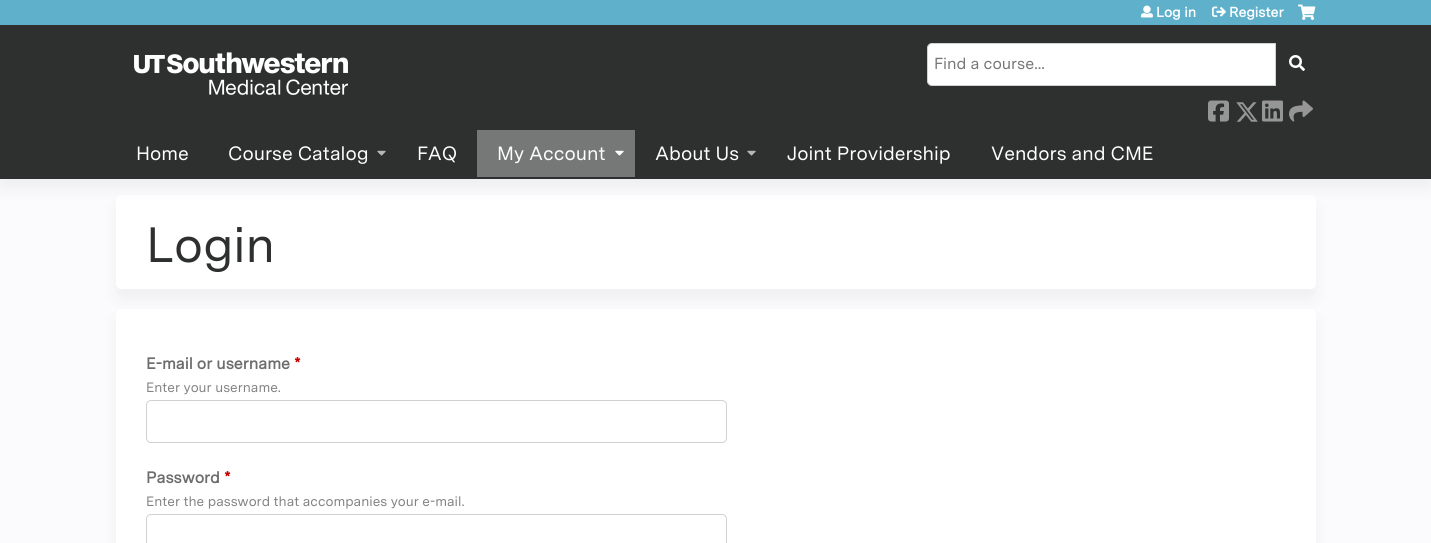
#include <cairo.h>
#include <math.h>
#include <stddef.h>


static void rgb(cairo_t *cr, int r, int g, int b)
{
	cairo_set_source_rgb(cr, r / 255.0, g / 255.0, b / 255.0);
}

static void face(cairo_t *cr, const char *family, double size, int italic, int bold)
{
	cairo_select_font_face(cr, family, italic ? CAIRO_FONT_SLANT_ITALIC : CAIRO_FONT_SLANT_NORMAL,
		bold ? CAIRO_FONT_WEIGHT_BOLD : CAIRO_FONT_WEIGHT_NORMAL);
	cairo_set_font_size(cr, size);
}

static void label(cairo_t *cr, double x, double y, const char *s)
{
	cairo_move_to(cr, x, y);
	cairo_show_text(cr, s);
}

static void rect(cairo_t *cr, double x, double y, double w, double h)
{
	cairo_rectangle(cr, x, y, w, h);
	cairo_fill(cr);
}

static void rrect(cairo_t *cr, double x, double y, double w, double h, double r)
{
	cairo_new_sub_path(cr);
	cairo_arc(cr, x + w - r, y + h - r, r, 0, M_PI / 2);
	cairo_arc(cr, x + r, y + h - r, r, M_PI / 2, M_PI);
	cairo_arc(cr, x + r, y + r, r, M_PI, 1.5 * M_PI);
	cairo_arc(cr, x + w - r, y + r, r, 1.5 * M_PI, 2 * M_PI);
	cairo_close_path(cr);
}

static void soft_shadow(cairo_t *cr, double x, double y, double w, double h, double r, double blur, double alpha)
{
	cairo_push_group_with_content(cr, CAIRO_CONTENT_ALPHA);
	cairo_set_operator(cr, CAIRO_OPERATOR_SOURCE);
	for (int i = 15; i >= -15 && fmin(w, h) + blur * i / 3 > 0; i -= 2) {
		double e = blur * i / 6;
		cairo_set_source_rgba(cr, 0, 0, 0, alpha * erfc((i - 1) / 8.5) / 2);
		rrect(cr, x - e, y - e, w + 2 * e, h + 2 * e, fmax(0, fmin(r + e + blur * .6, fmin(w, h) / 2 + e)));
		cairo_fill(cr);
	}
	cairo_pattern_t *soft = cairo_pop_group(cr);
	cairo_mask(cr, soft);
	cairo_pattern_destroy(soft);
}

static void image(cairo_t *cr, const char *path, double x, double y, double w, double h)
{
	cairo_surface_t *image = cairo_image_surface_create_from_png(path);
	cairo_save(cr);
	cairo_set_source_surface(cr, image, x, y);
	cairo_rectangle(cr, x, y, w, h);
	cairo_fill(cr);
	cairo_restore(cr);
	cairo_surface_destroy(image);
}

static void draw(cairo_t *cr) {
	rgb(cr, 251, 251, 253);
	cairo_paint(cr);
	rgb(cr, 46, 48, 47);
	rect(cr, 0, 25, 1431, 105);
	rgb(cr, 95, 176, 203);
	rect(cr, 0, 0, 1431, 25);
	image(cr, "image0.png", 134, 52, 214, 43);
	image(cr, "image1.png", 1141, 5, 12, 13);
	face(cr, "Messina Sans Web", 14, 0, 1);
	rgb(cr, 255, 255, 255);
	label(cr, 1156, 17, "Log in");
	image(cr, "image2.png", 1212, 6, 14, 11);
	label(cr, 1229, 17, "Register");
	image(cr, "image3.png", 1298, 4, 18, 16);
	cairo_new_path(cr);
	cairo_move_to(cr, 932, 43.5);
	cairo_line_to(cr, 1275.5, 43.5);
	cairo_line_to(cr, 1275.5, 85.5);
	cairo_line_to(cr, 932, 85.5);
	cairo_curve_to(cr, 929.5, 85.5, 927.5, 83.5, 927.5, 81);
	cairo_line_to(cr, 927.5, 48);
	cairo_curve_to(cr, 927.5, 45.5, 929.5, 43.5, 932, 43.5);
	cairo_close_path(cr);
	cairo_fill_preserve(cr);
	rgb(cr, 209, 209, 209);
	cairo_set_line_width(cr, 1);
	cairo_stroke(cr);
	face(cr, "Messina Sans Web", 16, 0, 0);
	rgb(cr, 117, 117, 117);
	label(cr, 934, 69, "Find a course...");
	image(cr, "image4.png", 1289, 55, 16, 16);
	image(cr, "image5.png", 1208, 100, 21, 22);
	image(cr, "image6.png", 1236, 102, 22, 20);
	image(cr, "image7.png", 1262, 100, 21, 22);
	image(cr, "image8.png", 1289, 100, 24, 22);
	rgb(cr, 0, 0, 0);
	soft_shadow(cr, 116, 205, 1200, 94, 5, 7.5, 0.05);
	rgb(cr, 255, 255, 255);
	rrect(cr, 116, 195, 1200, 94, 5);
	cairo_fill(cr);
	rgb(cr, 0, 0, 0);
	soft_shadow(cr, 0, 140, 1431, 49, 0, 7.5, 0.05);
	rgb(cr, 46, 48, 47);
	rect(cr, 0, 130, 1431, 49);
	face(cr, "Messina Sans Web", 19.25, 0, 0);
	rgb(cr, 255, 255, 255);
	label(cr, 136, 160, "Home");
	label(cr, 228, 160, "Course Catalog");
	image(cr, "image9.png", 377, 150, 9, 6);
	label(cr, 417, 160, "FAQ");
	rgb(cr, 118, 120, 119);
	rect(cr, 477, 130, 158, 47);
	rgb(cr, 255, 255, 255);
	label(cr, 497, 160, "My Account");
	image(cr, "image10.png", 615, 150, 9, 6);
	label(cr, 655, 160, "About Us");
	image(cr, "image9.png", 747, 150, 9, 6);
	label(cr, 787, 160, "Joint Providership");
	label(cr, 991, 160, "Vendors and CME");
	face(cr, "Messina Sans Web", 49.5, 0, 0);
	rgb(cr, 46, 48, 47);
	label(cr, 146, 262, "Login");
	rgb(cr, 0, 0, 0);
	soft_shadow(cr, 116, 319, 1200, 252, 5, 7.5, 0.05);
	rgb(cr, 255, 255, 255);
	rrect(cr, 116, 309, 1200, 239, 5);
	cairo_fill(cr);
	face(cr, "Messina Sans Web", 16, 0, 1);
	rgb(cr, 109, 109, 109);
	label(cr, 146, 369, "E-mail or username");
	rgb(cr, 204, 0, 0);
	label(cr, 294, 369, "*");
	face(cr, "Messina Sans Web", 13.6, 0, 0);
	rgb(cr, 130, 130, 130);
	label(cr, 146, 392, "Enter your username.");
	rrect(cr, 146.5, 400.5, 580, 42, 4.5);
	rgb(cr, 209, 209, 209);
	cairo_stroke(cr);
	face(cr, "Messina Sans Web", 16, 0, 1);
	rgb(cr, 109, 109, 109);
	label(cr, 146, 483, "Password");
	rgb(cr, 204, 0, 0);
	label(cr, 224, 483, "*");
	face(cr, "Messina Sans Web", 13.6, 0, 0);
	rgb(cr, 130, 130, 130);
	label(cr, 146, 506, "Enter the password that accompanies your e-mail.");
	rrect(cr, 146.5, 514.5, 580, 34, 4.5);
	rgb(cr, 209, 209, 209);
	cairo_stroke(cr);
}

int main(void) {
	cairo_surface_t *surface = cairo_image_surface_create(CAIRO_FORMAT_RGB24, 1431, 543);
	cairo_t *cr = cairo_create(surface);
	cairo_font_options_t *options = cairo_font_options_create();
	cairo_font_options_set_hint_metrics(options, CAIRO_HINT_METRICS_OFF);
	cairo_font_options_set_hint_style(options, CAIRO_HINT_STYLE_NONE);
	cairo_set_font_options(cr, options);
	cairo_set_miter_limit(cr, 4);
	draw(cr);
	cairo_surface_write_to_png(surface, "render.png");
	cairo_font_options_destroy(options);
	cairo_destroy(cr);
	cairo_surface_destroy(surface);
	return 0;
}
